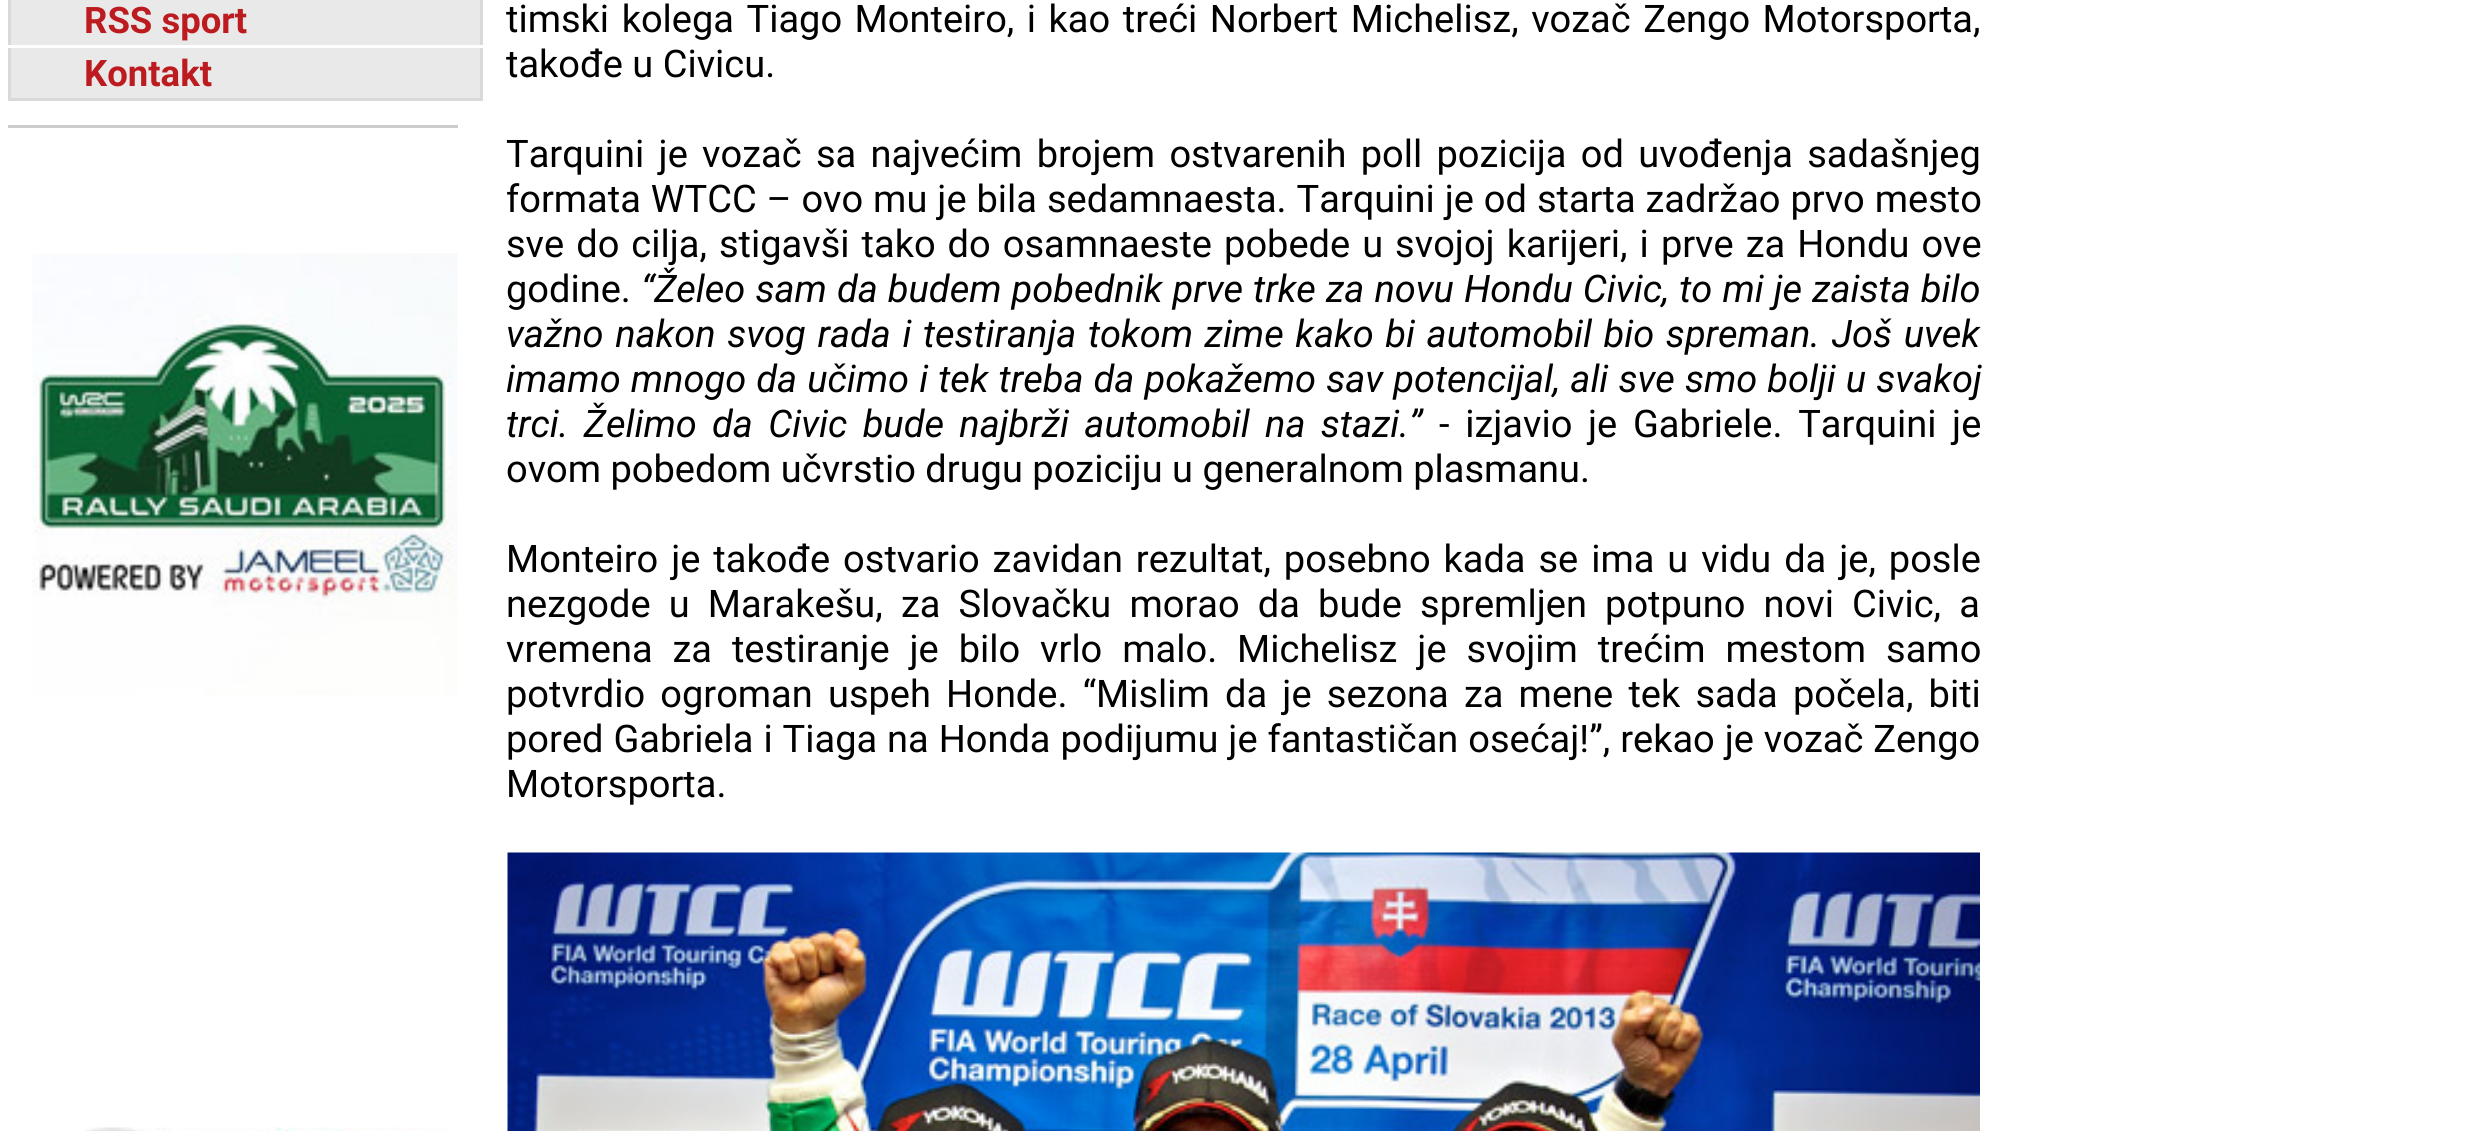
#include <cairo.h>
#include <math.h>
#include <stddef.h>


static void rgb(cairo_t *cr, int r, int g, int b)
{
	cairo_set_source_rgb(cr, r / 255.0, g / 255.0, b / 255.0);
}

static void face(cairo_t *cr, const char *family, double size, int italic, int bold)
{
	cairo_select_font_face(cr, family, italic ? CAIRO_FONT_SLANT_ITALIC : CAIRO_FONT_SLANT_NORMAL,
		bold ? CAIRO_FONT_WEIGHT_BOLD : CAIRO_FONT_WEIGHT_NORMAL);
	cairo_set_font_size(cr, size);
}

static void label(cairo_t *cr, double x, double y, const char *s)
{
	cairo_move_to(cr, x, y);
	cairo_show_text(cr, s);
}

static void tracked(cairo_t *cr, double x, double y, const char *s, double letter, double word)
{
	cairo_move_to(cr, x, y);
	while (*s) {
		char ch[5] = {0};
		int n = 0;
		do ch[n++] = *s++; while ((*s & 0xC0) == 0x80);
		cairo_show_text(cr, ch);
		cairo_rel_move_to(cr, letter + word * (*ch == ' '), 0);
	}
}

static void rect(cairo_t *cr, double x, double y, double w, double h)
{
	cairo_rectangle(cr, x, y, w, h);
	cairo_fill(cr);
}

static void image(cairo_t *cr, const char *path, double x, double y, double w, double h)
{
	cairo_surface_t *image = cairo_image_surface_create_from_png(path);
	cairo_save(cr);
	cairo_set_source_surface(cr, image, x, y);
	cairo_rectangle(cr, x, y, w, h);
	cairo_fill(cr);
	cairo_restore(cr);
	cairo_surface_destroy(image);
}

static void draw(cairo_t *cr) {
	rgb(cr, 255, 255, 255);
	cairo_paint(cr);
	rgb(cr, 233, 233, 233);
	rect(cr, 11, 0, 469, 98);
	rgb(cr, 217, 217, 217);
	rect(cr, 8, 98, 475, 3);
	rect(cr, 480, 0, 3, 45);
	rect(cr, 8, 0, 3, 45);
	face(cr, "Roboto", 36.5, 0, 1);
	rgb(cr, 188, 27, 32);
	label(cr, 84, 33, "RSS sport");
	rgb(cr, 255, 255, 255);
	rect(cr, 8, 45, 475, 3);
	rgb(cr, 217, 217, 217);
	rect(cr, 480, 48, 3, 50);
	rect(cr, 8, 48, 3, 50);
	rgb(cr, 188, 27, 32);
	label(cr, 84, 86, "Kontakt");
	rgb(cr, 204, 204, 204);
	rect(cr, 8, 125, 450, 3);
	image(cr, "image0.png", 32, 253, 426, 442);
	image(cr, "image1.png", 85, 1127, 364, 4);
	face(cr, "Roboto", 38, 0, 0);
	rgb(cr, 0, 0, 0);
	tracked(cr, 506, 32, "timski kolega Tiago Monteiro, i kao treći Norbert Michelisz, vozač Zengo Motorsporta,", 0, 3.1);
	label(cr, 506, 77, "takođe u Civicu.");
	tracked(cr, 506, 167, "Tarquini je vozač sa najvećim brojem ostvarenih poll pozicija od uvođenja sadašnjeg", 0, 4.9);
	tracked(cr, 506, 212, "formata WTCC – ovo mu je bila sedamnaesta. Tarquini je od starta zadržao prvo mesto", 0, 0.5);
	tracked(cr, 506, 257, "sve do cilja, stigavši tako do osamnaeste pobede u svojoj karijeri, i prve za Hondu ove", 0, 2.6);
	label(cr, 506, 302, "godine.");
	face(cr, "Roboto", 38, 1, 0);
	tracked(cr, 641, 302, "“Želeo sam da budem pobednik prve trke za novu Hondu Civic, to mi je zaista bilo", 0, 0.75);
	tracked(cr, 506, 347, "važno nakon svog rada i testiranja tokom zime kako bi automobil bio spreman. Još uvek", 0, 2.25);
	tracked(cr, 506, 392, "imamo mnogo da učimo i tek treba da pokažemo sav potencijal, ali sve smo bolji u svakoj", 0, 0.75);
	tracked(cr, 506, 437, "trci. Želimo da Civic bude najbrži automobil na stazi.”", 0, 6);
	face(cr, "Roboto", 38, 0, 0);
	tracked(cr, 1439, 437, "- izjavio je Gabriele. Tarquini je", 0, 6.25);
	label(cr, 506, 482, "ovom pobedom učvrstio drugu poziciju u generalnom plasmanu.");
	tracked(cr, 506, 572, "Monteiro je takođe ostvario zavidan rezultat, posebno kada se ima u vidu da je, posle", 0, 3.5);
	tracked(cr, 506, 617, "nezgode u Marakešu, za Slovačku morao da bude spremljen potpuno novi Civic, a", 0, 8.75);
	tracked(cr, 506, 662, "vremena za testiranje je bilo vrlo malo. Michelisz je svojim trećim mestom samo", 0, 10.5);
	tracked(cr, 506, 707, "potvrdio ogroman uspeh Honde. “Mislim da je sezona za mene tek sada počela, biti", 0, 5.75);
	tracked(cr, 506, 752, "pored Gabriela i Tiaga na Honda podijumu je fantastičan osećaj!”, rekao je vozač Zengo", 0, 0.5);
	label(cr, 506, 797, "Motorsporta.");
	image(cr, "image2.png", 507, 852, 1473, 279);
}

int main(void) {
	cairo_surface_t *surface = cairo_image_surface_create(CAIRO_FORMAT_RGB24, 2487, 1131);
	cairo_t *cr = cairo_create(surface);
	cairo_font_options_t *options = cairo_font_options_create();
	cairo_font_options_set_hint_metrics(options, CAIRO_HINT_METRICS_OFF);
	cairo_font_options_set_hint_style(options, CAIRO_HINT_STYLE_NONE);
	cairo_set_font_options(cr, options);
	cairo_set_miter_limit(cr, 4);
	draw(cr);
	cairo_surface_write_to_png(surface, "render.png");
	cairo_font_options_destroy(options);
	cairo_destroy(cr);
	cairo_surface_destroy(surface);
	return 0;
}
